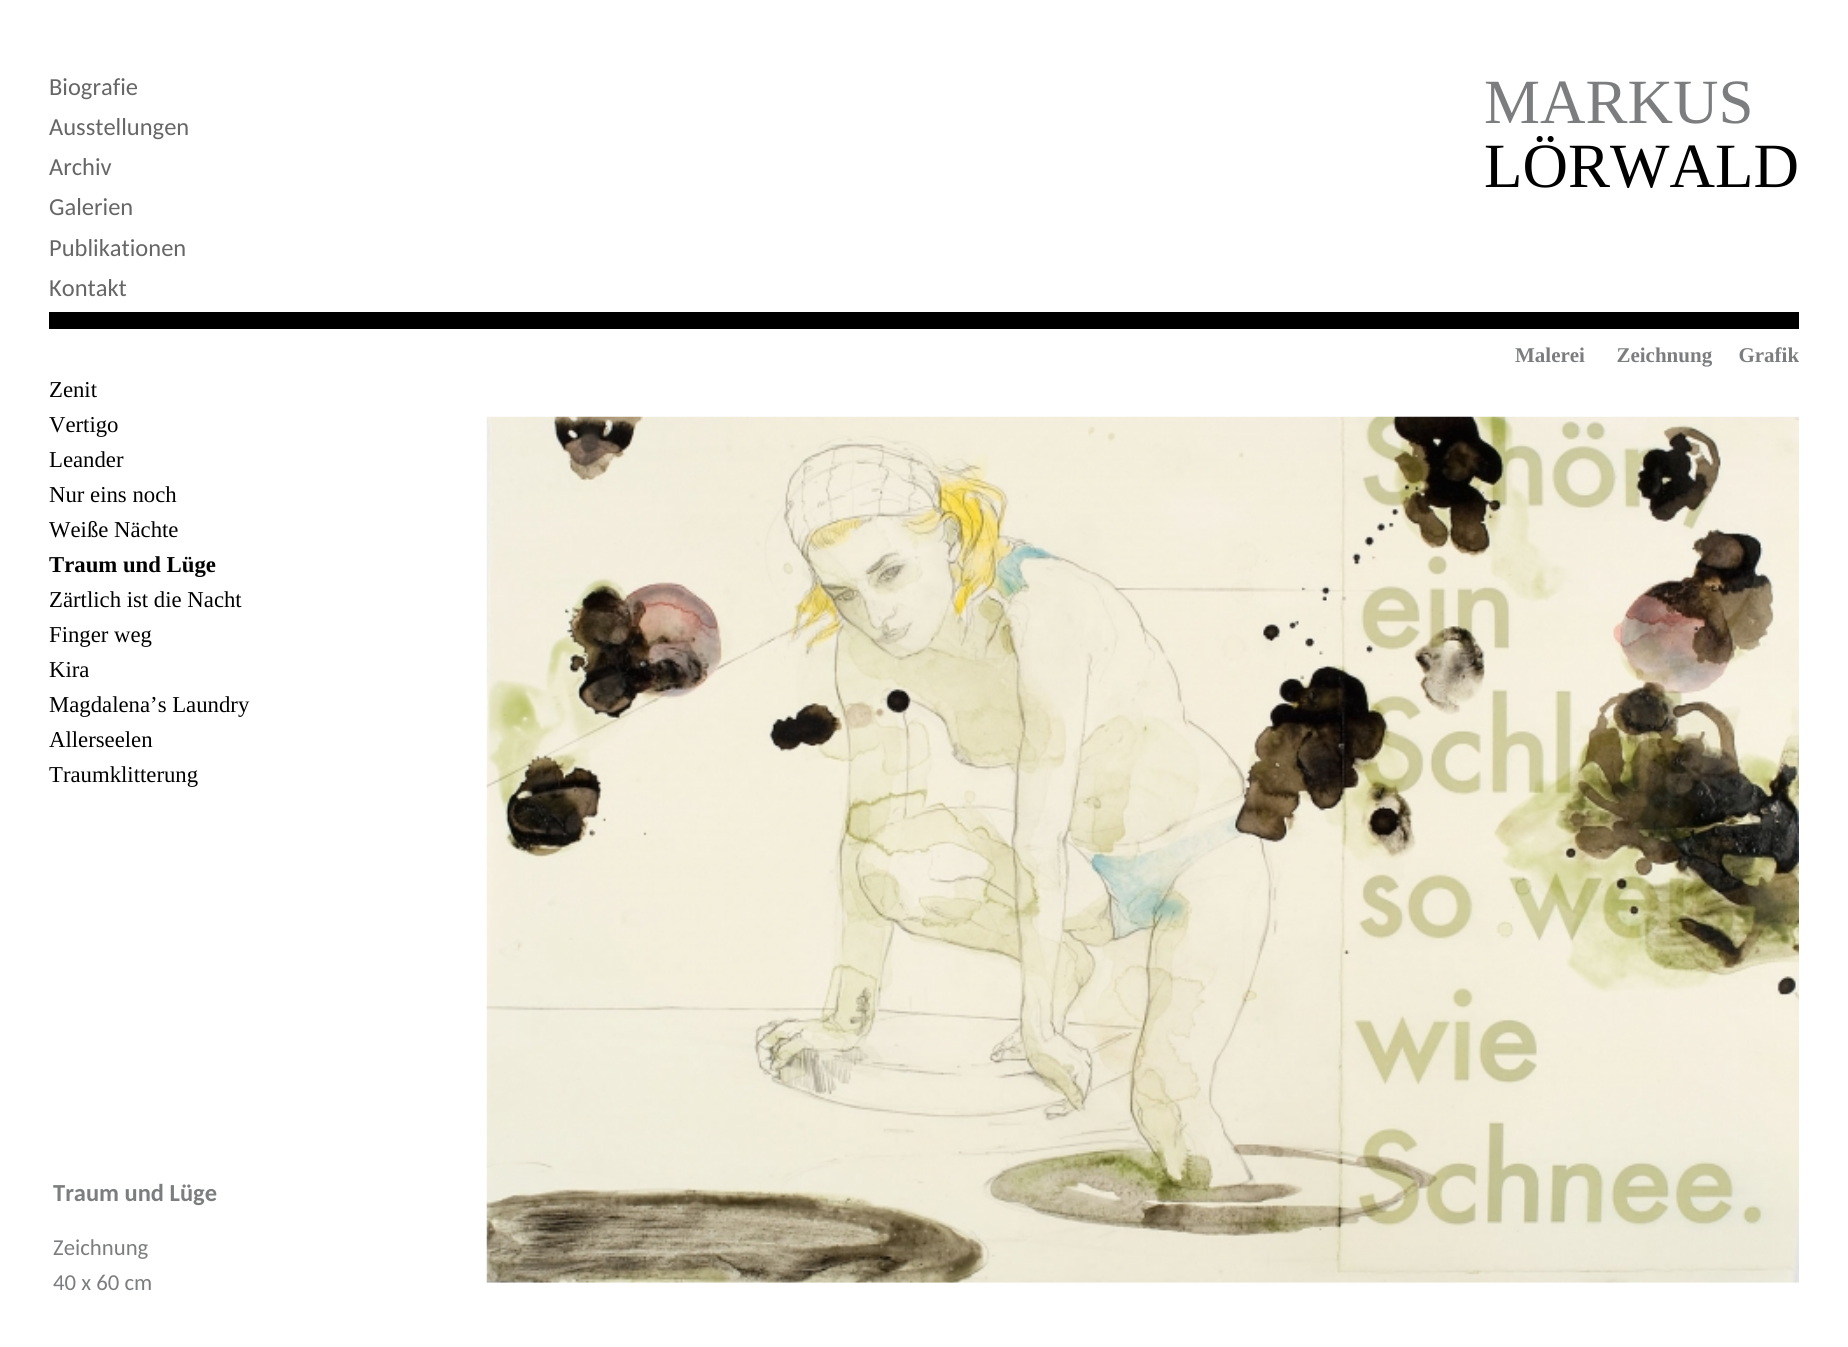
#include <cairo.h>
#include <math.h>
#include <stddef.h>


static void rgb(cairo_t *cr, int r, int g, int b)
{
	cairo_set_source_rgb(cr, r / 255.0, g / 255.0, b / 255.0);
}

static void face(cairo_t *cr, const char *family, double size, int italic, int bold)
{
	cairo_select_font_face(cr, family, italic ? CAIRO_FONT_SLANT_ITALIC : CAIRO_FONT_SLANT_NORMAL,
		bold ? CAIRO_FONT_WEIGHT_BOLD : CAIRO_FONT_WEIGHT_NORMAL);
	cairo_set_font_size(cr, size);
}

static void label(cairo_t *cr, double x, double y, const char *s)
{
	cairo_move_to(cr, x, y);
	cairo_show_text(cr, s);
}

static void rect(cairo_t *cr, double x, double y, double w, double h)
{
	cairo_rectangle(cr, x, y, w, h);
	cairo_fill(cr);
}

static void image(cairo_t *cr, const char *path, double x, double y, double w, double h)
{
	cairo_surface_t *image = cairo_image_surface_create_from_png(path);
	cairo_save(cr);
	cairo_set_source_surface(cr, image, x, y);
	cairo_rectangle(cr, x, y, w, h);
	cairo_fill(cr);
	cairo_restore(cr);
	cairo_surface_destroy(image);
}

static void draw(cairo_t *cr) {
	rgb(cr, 255, 255, 255);
	cairo_paint(cr);
	rgb(cr, 0, 0, 0);
	rect(cr, 49, 312, 1750, 17);
	face(cr, "Carlito", 24.5, 0, 0);
	rgb(cr, 102, 102, 102);
	label(cr, 49, 95, "Biografie");
	label(cr, 49, 135, "Ausstellungen");
	label(cr, 49, 175, "Archiv");
	label(cr, 49, 215, "Galerien");
	label(cr, 49, 256, "Publikationen");
	label(cr, 49, 296, "Kontakt");
	face(cr, "Liberation Serif", 63, 0, 0);
	rgb(cr, 124, 125, 127);
	label(cr, 1484, 123, "MARKUS");
	rgb(cr, 0, 0, 0);
	label(cr, 1484, 187, "LÖRWALD");
	face(cr, "Liberation Serif", 21, 0, 1);
	rgb(cr, 124, 125, 127);
	label(cr, 1515, 362, "Malerei      Zeichnung     Grafik");
	face(cr, "Liberation Serif", 22.75, 0, 0);
	rgb(cr, 0, 0, 0);
	label(cr, 49, 397, "Zenit");
	label(cr, 49, 432, "Vertigo");
	label(cr, 49, 467, "Leander");
	label(cr, 49, 502, "Nur eins noch");
	label(cr, 49, 537, "Weiße Nächte");
	face(cr, "Liberation Serif", 22.75, 0, 1);
	label(cr, 49, 572, "Traum und Lüge");
	face(cr, "Liberation Serif", 22.75, 0, 0);
	label(cr, 49, 607, "Zärtlich ist die Nacht");
	label(cr, 49, 642, "Finger weg");
	label(cr, 49, 677, "Kira");
	label(cr, 49, 712, "Magdalena’s Laundry");
	label(cr, 49, 747, "Allerseelen");
	label(cr, 49, 782, "Traumklitterung");
	face(cr, "Carlito", 24.5, 0, 1);
	rgb(cr, 124, 125, 127);
	label(cr, 53, 1201, "Traum und Lüge");
	face(cr, "Carlito", 22.75, 0, 0);
	label(cr, 53, 1255, "Zeichnung");
	label(cr, 53, 1290, "40 x 60 cm");
	image(cr, "image0.png", 486, 416, 1313, 867);
}

int main(void) {
	cairo_surface_t *surface = cairo_image_surface_create(CAIRO_FORMAT_RGB24, 1848, 1347);
	cairo_t *cr = cairo_create(surface);
	cairo_font_options_t *options = cairo_font_options_create();
	cairo_font_options_set_hint_metrics(options, CAIRO_HINT_METRICS_OFF);
	cairo_font_options_set_hint_style(options, CAIRO_HINT_STYLE_NONE);
	cairo_set_font_options(cr, options);
	cairo_set_miter_limit(cr, 4);
	draw(cr);
	cairo_surface_write_to_png(surface, "render.png");
	cairo_font_options_destroy(options);
	cairo_destroy(cr);
	cairo_surface_destroy(surface);
	return 0;
}
